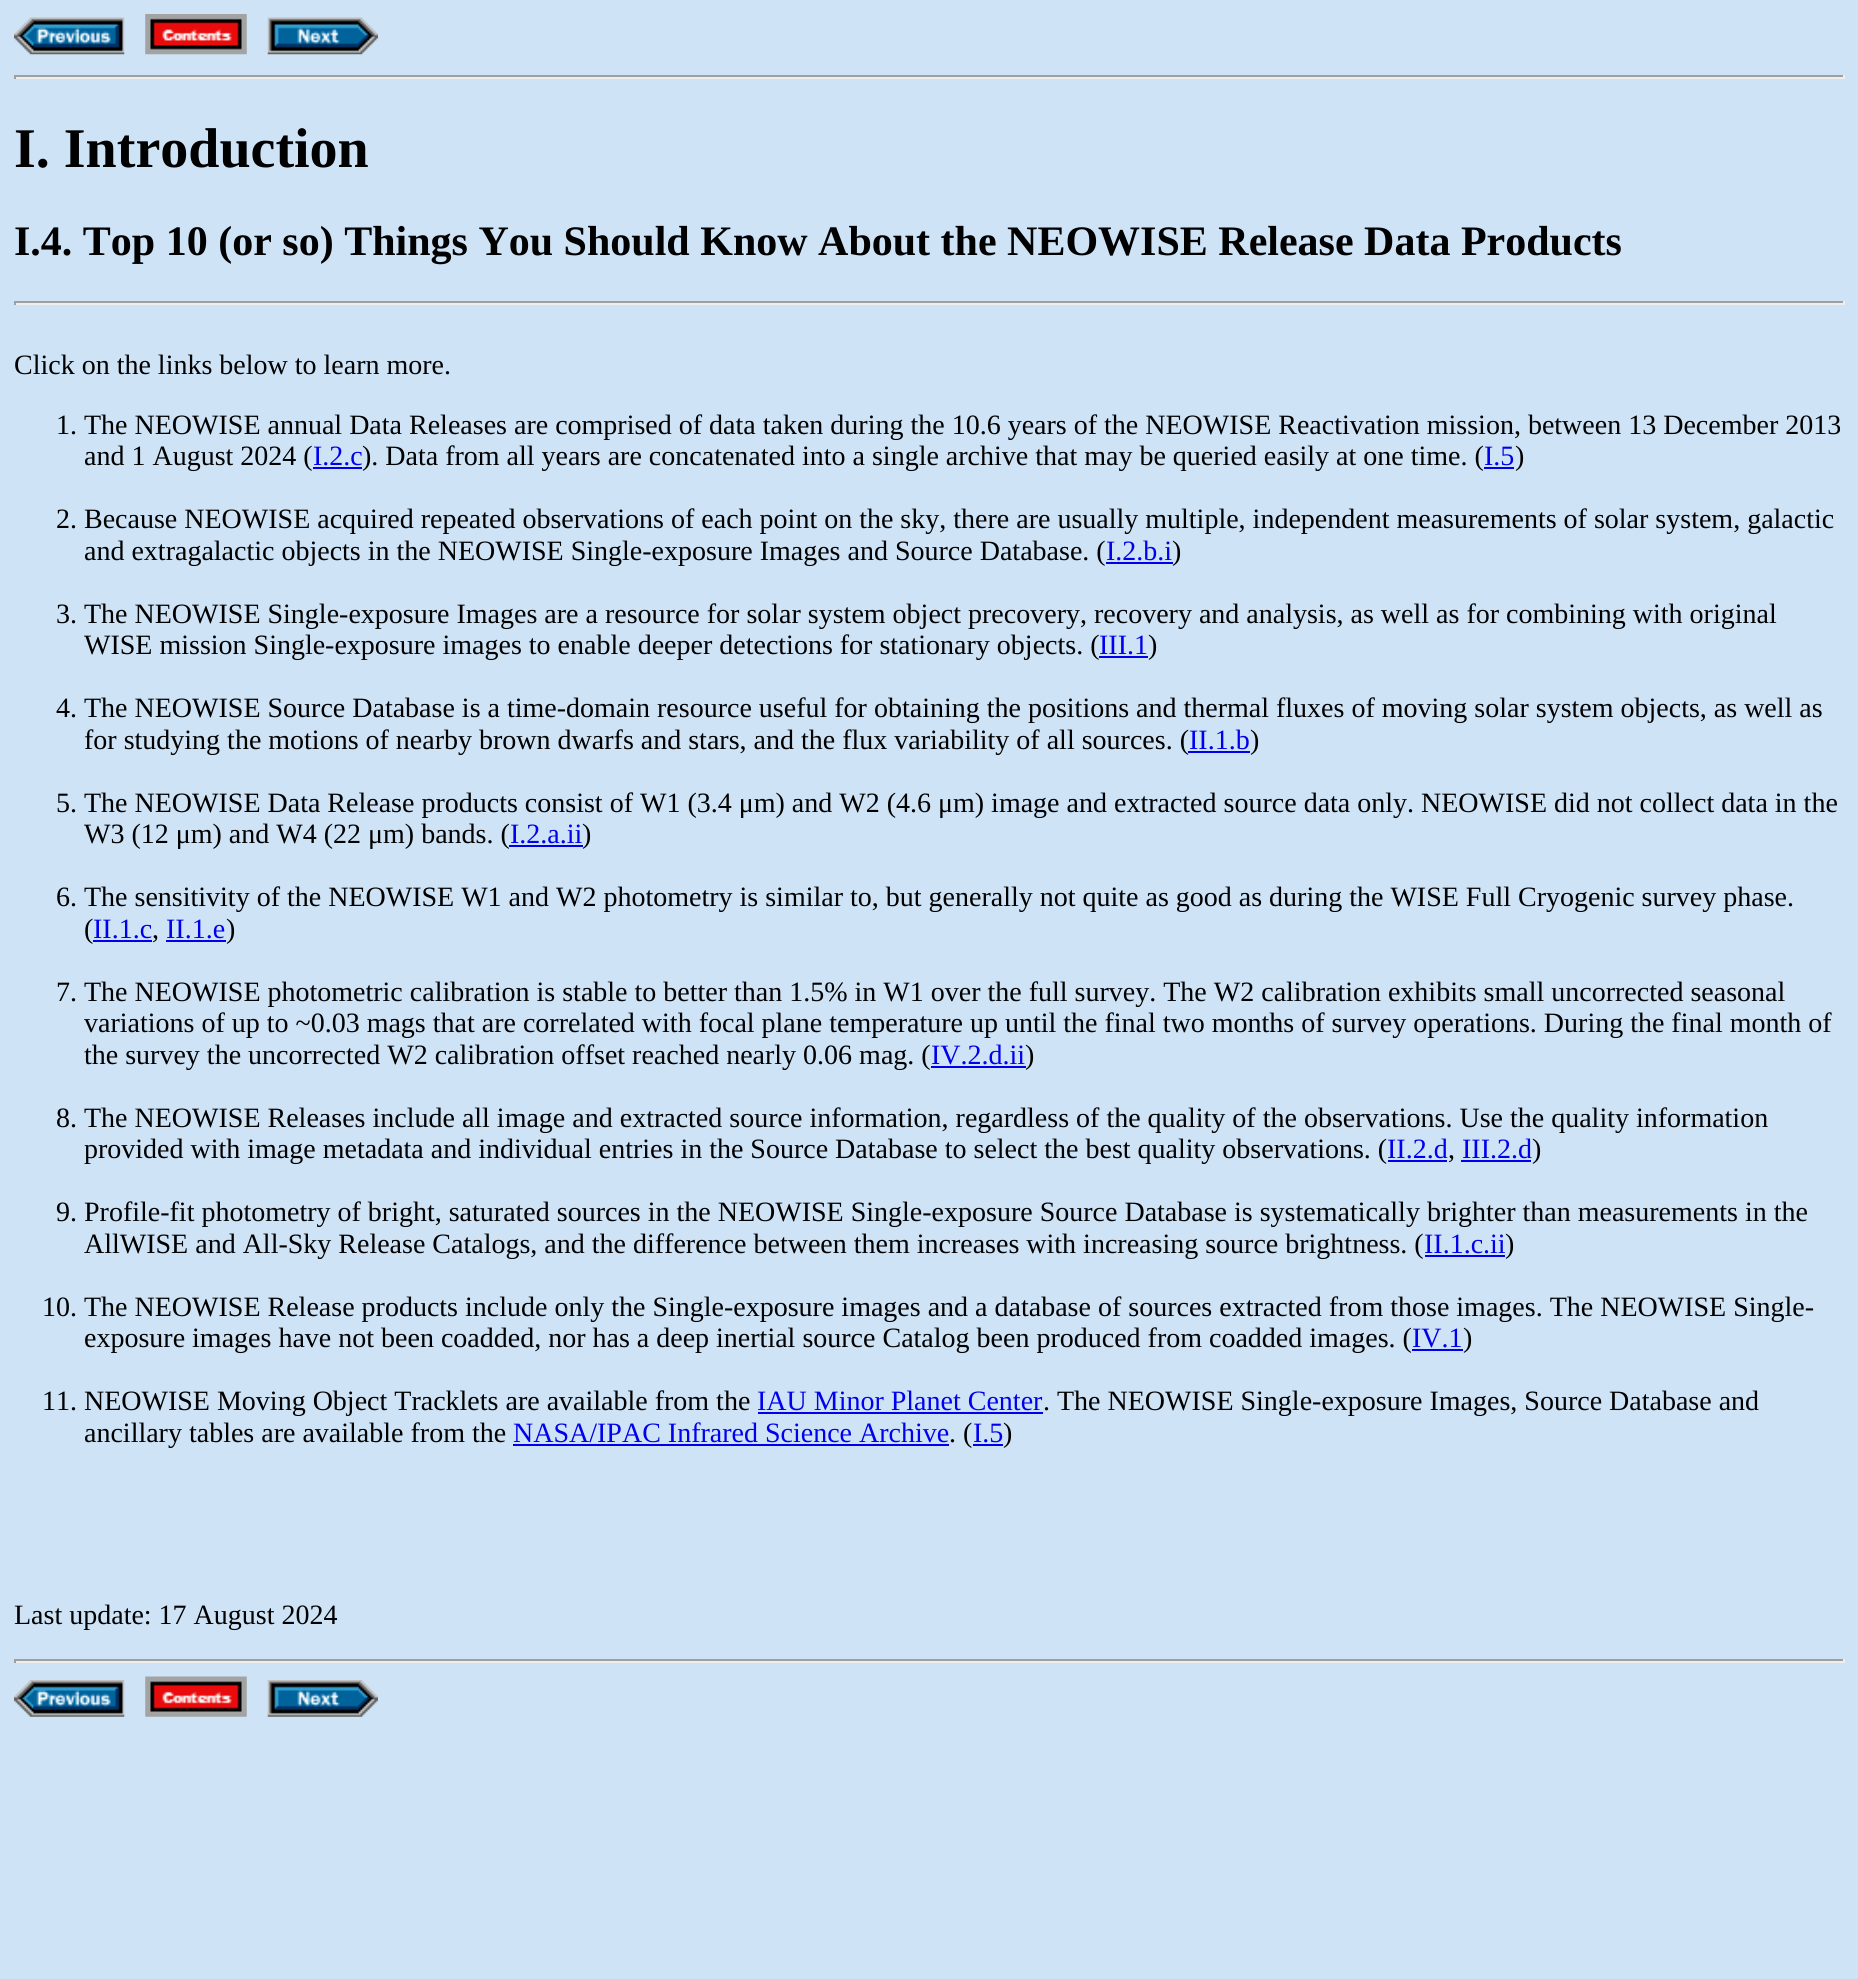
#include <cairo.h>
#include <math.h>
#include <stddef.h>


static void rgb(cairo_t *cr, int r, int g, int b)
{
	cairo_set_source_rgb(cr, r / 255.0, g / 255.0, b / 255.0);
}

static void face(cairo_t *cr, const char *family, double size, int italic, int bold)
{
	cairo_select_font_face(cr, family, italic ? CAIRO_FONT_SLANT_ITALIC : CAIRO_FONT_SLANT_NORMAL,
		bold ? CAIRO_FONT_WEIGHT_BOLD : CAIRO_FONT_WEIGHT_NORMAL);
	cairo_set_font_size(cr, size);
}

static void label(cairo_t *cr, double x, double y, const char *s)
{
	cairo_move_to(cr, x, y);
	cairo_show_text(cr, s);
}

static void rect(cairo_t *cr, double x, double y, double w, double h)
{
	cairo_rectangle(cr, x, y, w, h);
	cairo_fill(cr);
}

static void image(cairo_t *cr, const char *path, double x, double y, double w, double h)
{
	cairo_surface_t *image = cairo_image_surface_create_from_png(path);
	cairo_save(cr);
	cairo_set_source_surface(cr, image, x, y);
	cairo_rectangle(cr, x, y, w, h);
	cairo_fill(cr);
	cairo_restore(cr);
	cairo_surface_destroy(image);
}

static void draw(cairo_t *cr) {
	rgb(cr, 206, 227, 246);
	cairo_paint(cr);
	image(cr, "image0.png", 14, 17, 111, 38);
	image(cr, "image1.png", 145, 14, 102, 41);
	image(cr, "image2.png", 267, 17, 111, 38);
	rgb(cr, 159, 159, 159);
	rect(cr, 14, 75, 1831, 2);
	rgb(cr, 238, 238, 238);
	rect(cr, 1843, 75, 2, 4);
	rect(cr, 14, 77, 1831, 2);
	rgb(cr, 159, 159, 159);
	rect(cr, 14, 75, 2, 4);
	face(cr, "Liberation Serif", 56, 0, 1);
	rgb(cr, 0, 0, 0);
	label(cr, 14, 167, "I. Introduction");
	face(cr, "Liberation Serif", 42, 0, 1);
	label(cr, 14, 255, "I.4. Top 10 (or so) Things You Should Know About the NEOWISE Release Data Products");
	rgb(cr, 159, 159, 159);
	rect(cr, 14, 301, 1831, 2);
	rgb(cr, 238, 238, 238);
	rect(cr, 1843, 301, 2, 4);
	rect(cr, 14, 303, 1831, 2);
	rgb(cr, 159, 159, 159);
	rect(cr, 14, 301, 2, 4);
	face(cr, "Liberation Serif", 28, 0, 0);
	rgb(cr, 0, 0, 0);
	label(cr, 14, 374, "Click on the links below to learn more.");
	label(cr, 56, 434, "1. The NEOWISE annual Data Releases are comprised of data taken during the 10.6 years of the NEOWISE Reactivation mission, between 13 December 2013");
	label(cr, 84, 465, "and 1 August 2024 (");
	rgb(cr, 0, 0, 238);
	label(cr, 313, 465, "I.2.c");
	rect(cr, 313, 467, 49, 2);
	rgb(cr, 0, 0, 0);
	label(cr, 362, 465, "). Data from all years are concatenated into a single archive that may be queried easily at one time. (");
	rgb(cr, 0, 0, 238);
	label(cr, 1484, 465, "I.5");
	rect(cr, 1484, 467, 30, 2);
	rgb(cr, 0, 0, 0);
	label(cr, 1515, 465, ")");
	label(cr, 56, 528, "2. Because NEOWISE acquired repeated observations of each point on the sky, there are usually multiple, independent measurements of solar system, galactic");
	label(cr, 84, 560, "and extragalactic objects in the NEOWISE Single-exposure Images and Source Database. (");
	rgb(cr, 0, 0, 238);
	label(cr, 1106, 560, "I.2.b.i");
	rect(cr, 1106, 562, 67, 2);
	rgb(cr, 0, 0, 0);
	label(cr, 1172, 560, ")");
	label(cr, 56, 623, "3. The NEOWISE Single-exposure Images are a resource for solar system object precovery, recovery and analysis, as well as for combining with original");
	label(cr, 84, 654, "WISE mission Single-exposure images to enable deeper detections for stationary objects. (");
	rgb(cr, 0, 0, 238);
	label(cr, 1099, 654, "III.1");
	rect(cr, 1099, 656, 49, 2);
	rgb(cr, 0, 0, 0);
	label(cr, 1148, 654, ")");
	label(cr, 56, 717, "4. The NEOWISE Source Database is a time-domain resource useful for obtaining the positions and thermal fluxes of moving solar system objects, as well as");
	label(cr, 84, 749, "for studying the motions of nearby brown dwarfs and stars, and the flux variability of all sources. (");
	rgb(cr, 0, 0, 238);
	label(cr, 1189, 749, "II.1.b");
	rect(cr, 1188, 751, 62, 2);
	rgb(cr, 0, 0, 0);
	label(cr, 1250, 749, ")");
	label(cr, 56, 812, "5. The NEOWISE Data Release products consist of W1 (3.4 μm) and W2 (4.6 μm) image and extracted source data only. NEOWISE did not collect data in the");
	label(cr, 84, 843, "W3 (12 μm) and W4 (22 μm) bands. (");
	rgb(cr, 0, 0, 238);
	label(cr, 510, 843, "I.2.a.ii");
	rect(cr, 509, 845, 74, 2);
	rgb(cr, 0, 0, 0);
	label(cr, 582, 843, ")");
	label(cr, 56, 906, "6. The sensitivity of the NEOWISE W1 and W2 photometry is similar to, but generally not quite as good as during the WISE Full Cryogenic survey phase.");
	label(cr, 84, 938, "(");
	rgb(cr, 0, 0, 238);
	label(cr, 93, 938, "II.1.c");
	rect(cr, 93, 940, 59, 2);
	rgb(cr, 0, 0, 0);
	label(cr, 152, 938, ",");
	rgb(cr, 0, 0, 238);
	label(cr, 166, 938, "II.1.e");
	rect(cr, 166, 940, 60, 2);
	rgb(cr, 0, 0, 0);
	label(cr, 226, 938, ")");
	label(cr, 56, 1001, "7. The NEOWISE photometric calibration is stable to better than 1.5% in W1 over the full survey. The W2 calibration exhibits small uncorrected seasonal");
	label(cr, 84, 1032, "variations of up to ~0.03 mags that are correlated with focal plane temperature up until the final two months of survey operations. During the final month of");
	label(cr, 84, 1064, "the survey the uncorrected W2 calibration offset reached nearly 0.06 mag. (");
	rgb(cr, 0, 0, 238);
	label(cr, 931, 1064, "IV.2.d.ii");
	rect(cr, 931, 1066, 95, 2);
	rgb(cr, 0, 0, 0);
	label(cr, 1025, 1064, ")");
	label(cr, 56, 1127, "8. The NEOWISE Releases include all image and extracted source information, regardless of the quality of the observations. Use the quality information");
	label(cr, 84, 1158, "provided with image metadata and individual entries in the Source Database to select the best quality observations. (");
	rgb(cr, 0, 0, 238);
	label(cr, 1387, 1158, "II.2.d");
	rect(cr, 1388, 1160, 59, 2);
	rgb(cr, 0, 0, 0);
	label(cr, 1448, 1158, ",");
	rgb(cr, 0, 0, 238);
	label(cr, 1462, 1158, "III.2.d");
	rect(cr, 1461, 1160, 70, 2);
	rgb(cr, 0, 0, 0);
	label(cr, 1532, 1158, ")");
	label(cr, 56, 1221, "9. Profile-fit photometry of bright, saturated sources in the NEOWISE Single-exposure Source Database is systematically brighter than measurements in the");
	label(cr, 84, 1253, "AllWISE and All-Sky Release Catalogs, and the difference between them increases with increasing source brightness. (");
	rgb(cr, 0, 0, 238);
	label(cr, 1424, 1253, "II.1.c.ii");
	rect(cr, 1425, 1255, 80, 2);
	rgb(cr, 0, 0, 0);
	label(cr, 1505, 1253, ")");
	label(cr, 42, 1316, "10. The NEOWISE Release products include only the Single-exposure images and a database of sources extracted from those images. The NEOWISE Single-");
	label(cr, 84, 1347, "exposure images have not been coadded, nor has a deep inertial source Catalog been produced from coadded images. (");
	rgb(cr, 0, 0, 238);
	label(cr, 1412, 1347, "IV.1");
	rect(cr, 1412, 1349, 51, 2);
	rgb(cr, 0, 0, 0);
	label(cr, 1463, 1347, ")");
	label(cr, 42, 1410, "11. NEOWISE Moving Object Tracklets are available from the");
	rgb(cr, 0, 0, 238);
	label(cr, 757, 1410, "IAU Minor Planet Center");
	rect(cr, 758, 1412, 285, 2);
	rgb(cr, 0, 0, 0);
	label(cr, 1043, 1410, ". The NEOWISE Single-exposure Images, Source Database and");
	label(cr, 84, 1442, "ancillary tables are available from the");
	rgb(cr, 0, 0, 238);
	label(cr, 513, 1442, "NASA/IPAC Infrared Science Archive");
	rect(cr, 513, 1444, 436, 2);
	rgb(cr, 0, 0, 0);
	label(cr, 949, 1442, ". (");
	rgb(cr, 0, 0, 238);
	label(cr, 973, 1442, "I.5");
	rect(cr, 973, 1444, 30, 2);
	rgb(cr, 0, 0, 0);
	label(cr, 1003, 1442, ")");
	label(cr, 14, 1624, "Last update: 17 August 2024");
	rgb(cr, 159, 159, 159);
	rect(cr, 14, 1659, 1831, 2);
	rgb(cr, 238, 238, 238);
	rect(cr, 1843, 1659, 2, 4);
	rect(cr, 14, 1661, 1831, 2);
	rgb(cr, 159, 159, 159);
	rect(cr, 14, 1659, 2, 4);
	image(cr, "image3.png", 14, 1680, 111, 37);
	image(cr, "image4.png", 145, 1676, 102, 41);
	image(cr, "image5.png", 267, 1680, 111, 37);
}

int main(void) {
	cairo_surface_t *surface = cairo_image_surface_create(CAIRO_FORMAT_RGB24, 1858, 1979);
	cairo_t *cr = cairo_create(surface);
	cairo_font_options_t *options = cairo_font_options_create();
	cairo_font_options_set_hint_metrics(options, CAIRO_HINT_METRICS_OFF);
	cairo_font_options_set_hint_style(options, CAIRO_HINT_STYLE_NONE);
	cairo_set_font_options(cr, options);
	cairo_set_miter_limit(cr, 4);
	draw(cr);
	cairo_surface_write_to_png(surface, "render.png");
	cairo_font_options_destroy(options);
	cairo_destroy(cr);
	cairo_surface_destroy(surface);
	return 0;
}
